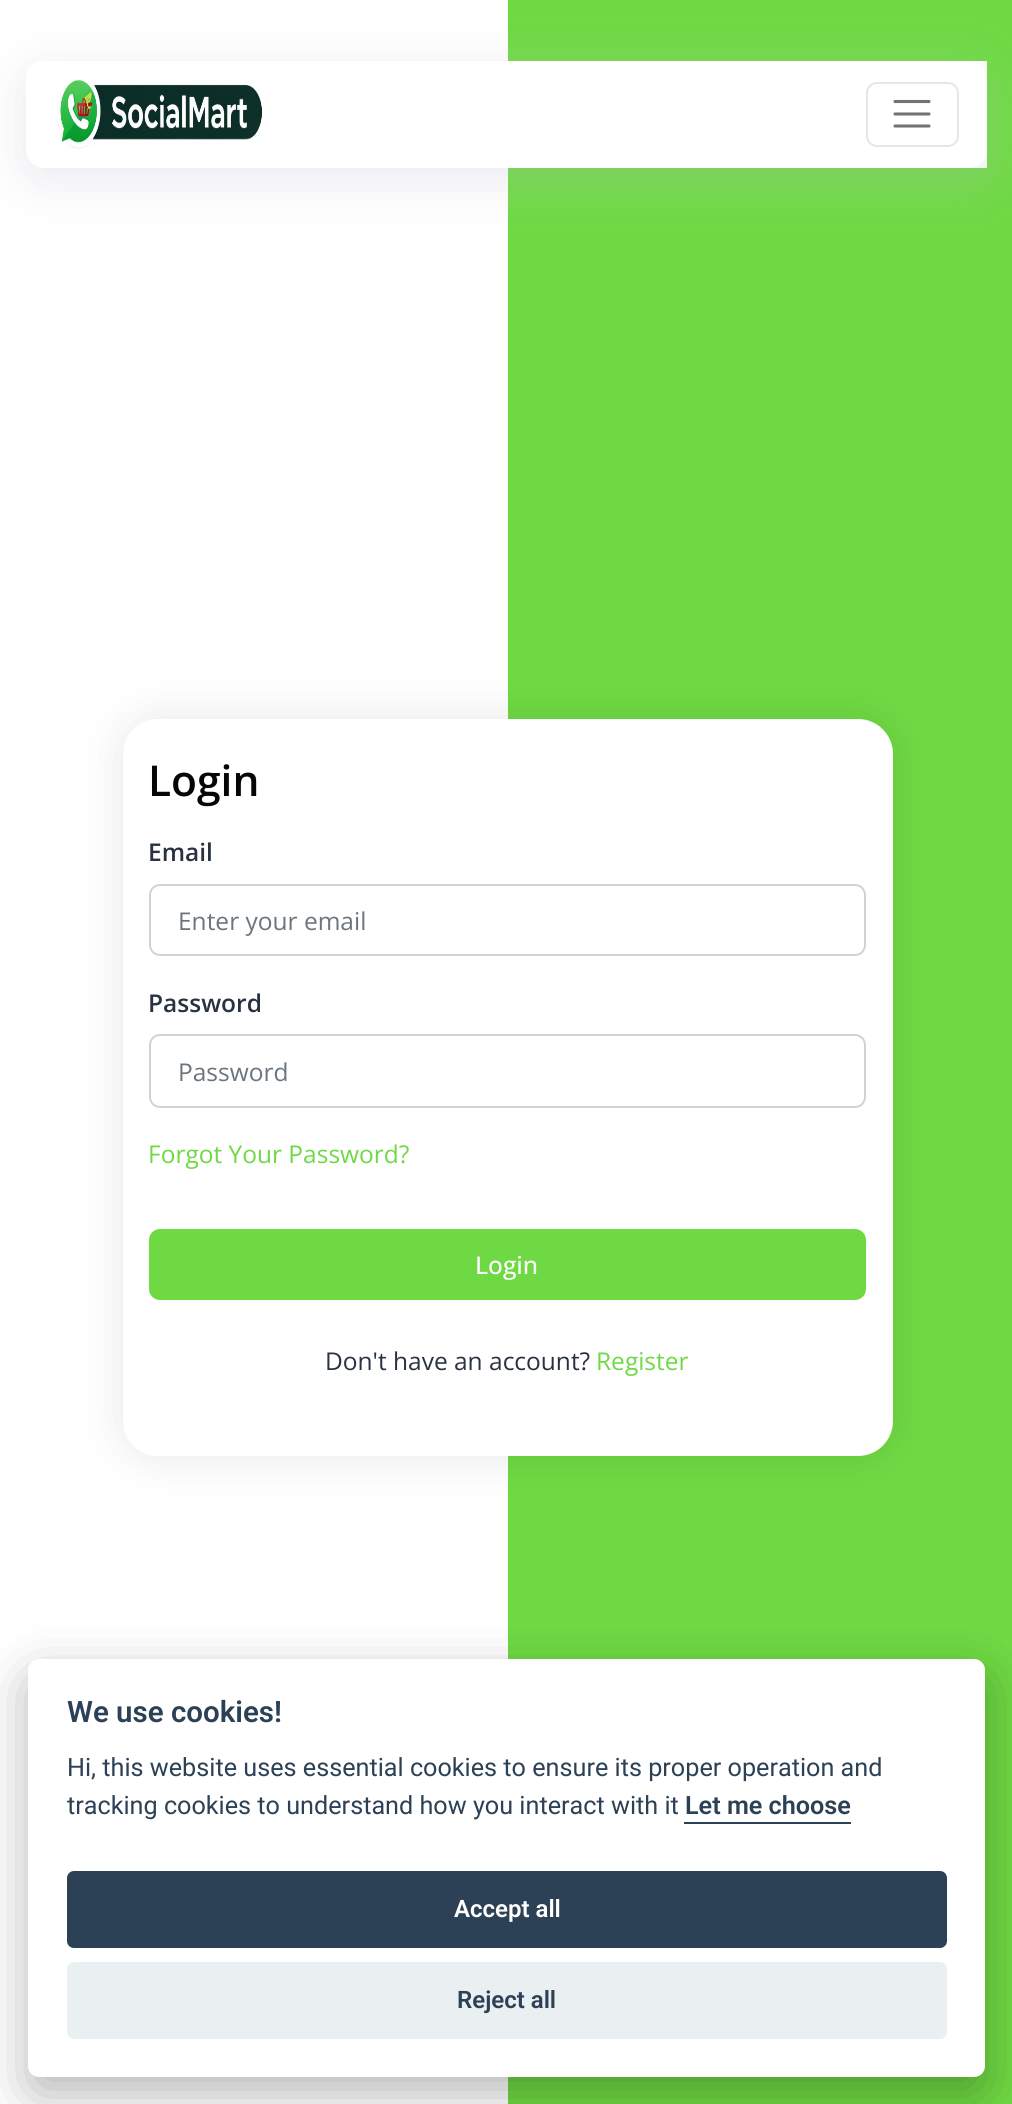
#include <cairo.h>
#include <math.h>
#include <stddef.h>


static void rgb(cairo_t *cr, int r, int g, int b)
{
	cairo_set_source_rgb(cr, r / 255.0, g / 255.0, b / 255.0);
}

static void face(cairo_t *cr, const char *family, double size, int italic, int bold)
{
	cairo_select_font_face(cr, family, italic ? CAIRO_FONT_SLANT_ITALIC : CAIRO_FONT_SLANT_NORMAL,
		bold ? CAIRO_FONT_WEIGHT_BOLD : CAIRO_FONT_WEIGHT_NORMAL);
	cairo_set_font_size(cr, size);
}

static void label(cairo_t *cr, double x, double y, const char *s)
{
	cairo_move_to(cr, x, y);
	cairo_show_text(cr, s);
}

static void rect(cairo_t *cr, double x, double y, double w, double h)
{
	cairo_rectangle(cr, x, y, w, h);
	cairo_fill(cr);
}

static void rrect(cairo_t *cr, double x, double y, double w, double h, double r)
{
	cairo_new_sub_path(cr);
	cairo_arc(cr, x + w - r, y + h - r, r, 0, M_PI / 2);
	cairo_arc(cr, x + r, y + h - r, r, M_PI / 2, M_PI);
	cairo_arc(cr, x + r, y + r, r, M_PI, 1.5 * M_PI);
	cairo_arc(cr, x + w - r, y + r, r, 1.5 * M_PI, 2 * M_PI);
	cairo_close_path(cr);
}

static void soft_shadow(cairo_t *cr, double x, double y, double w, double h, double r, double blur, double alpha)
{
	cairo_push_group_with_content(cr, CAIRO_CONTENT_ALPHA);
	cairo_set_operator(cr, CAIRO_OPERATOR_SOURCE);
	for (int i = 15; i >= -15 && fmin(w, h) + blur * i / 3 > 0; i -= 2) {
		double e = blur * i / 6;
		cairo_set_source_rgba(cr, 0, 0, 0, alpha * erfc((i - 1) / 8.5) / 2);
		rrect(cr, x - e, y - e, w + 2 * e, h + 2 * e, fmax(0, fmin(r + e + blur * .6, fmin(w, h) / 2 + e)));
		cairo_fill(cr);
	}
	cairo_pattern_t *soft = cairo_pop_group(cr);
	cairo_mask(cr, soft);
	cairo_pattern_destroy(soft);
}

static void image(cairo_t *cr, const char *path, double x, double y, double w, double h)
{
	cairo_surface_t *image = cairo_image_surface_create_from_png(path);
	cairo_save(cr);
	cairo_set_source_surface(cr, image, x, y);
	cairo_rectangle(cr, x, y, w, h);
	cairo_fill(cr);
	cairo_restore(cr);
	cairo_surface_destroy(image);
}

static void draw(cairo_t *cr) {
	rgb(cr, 255, 255, 255);
	cairo_paint(cr);
	rgb(cr, 111, 217, 67);
	rect(cr, 508, 0, 504, 2104);
	rgb(cr, 255, 255, 255);
	rect(cr, 508, 61, 479, 107);
	rgb(cr, 182, 186, 203);
	soft_shadow(cr, 26, 72, 961, 107, 18, 26, 0.3);
	rgb(cr, 255, 255, 255);
	rrect(cr, 26, 61, 961, 107, 18);
	cairo_fill(cr);
	image(cr, "image0.png", 57, 79, 205, 70);
	rrect(cr, 867, 83, 91, 63, 10);
	rgb(cr, 230, 230, 230);
	cairo_stroke(cr);
	cairo_new_path(cr);
	cairo_move_to(cr, 895, 101.5);
	cairo_line_to(cr, 929, 101.5);
	cairo_move_to(cr, 895, 114);
	cairo_line_to(cr, 929, 114);
	cairo_move_to(cr, 895, 126);
	cairo_line_to(cr, 929, 126);
	rgb(cr, 115, 115, 115);
	cairo_set_line_width(cr, 3.1);
	cairo_set_line_cap(cr, CAIRO_LINE_CAP_ROUND);
	cairo_stroke(cr);
	rgb(cr, 0, 0, 0);
	soft_shadow(cr, 123, 719, 770, 737, 35, 22, 0.1);
	rgb(cr, 255, 255, 255);
	rrect(cr, 123, 719, 770, 737, 35);
	cairo_fill(cr);
	face(cr, "Open Sans SemiBold", 42.5, 0, 0);
	rgb(cr, 6, 6, 6);
	label(cr, 148, 796, "Login");
	face(cr, "Open Sans SemiBold", 24.5, 0, 0);
	rgb(cr, 41, 50, 64);
	label(cr, 148, 861, "Email");
	rrect(cr, 150, 885, 715, 70, 10);
	rgb(cr, 206, 212, 218);
	cairo_set_line_width(cr, 2);
	cairo_set_line_cap(cr, CAIRO_LINE_CAP_BUTT);
	cairo_stroke(cr);
	face(cr, "Open Sans", 24.5, 0, 0);
	rgb(cr, 108, 117, 125);
	label(cr, 178, 930, "Enter your email");
	face(cr, "Open Sans SemiBold", 24.5, 0, 0);
	rgb(cr, 41, 50, 64);
	label(cr, 148, 1012, "Password");
	rrect(cr, 150, 1035, 715, 72, 10);
	rgb(cr, 206, 212, 218);
	cairo_stroke(cr);
	face(cr, "Open Sans", 24.5, 0, 0);
	rgb(cr, 108, 117, 125);
	label(cr, 178, 1081, "Password");
	rgb(cr, 111, 217, 67);
	label(cr, 148, 1163, "Forgot Your Password?");
	rrect(cr, 150, 1230, 715, 69, 10);
	cairo_fill_preserve(cr);
	cairo_stroke(cr);
	face(cr, "Open Sans Medium", 24.5, 0, 0);
	rgb(cr, 255, 255, 255);
	label(cr, 475, 1274, "Login");
	face(cr, "Open Sans", 24.5, 0, 0);
	rgb(cr, 41, 50, 64);
	label(cr, 325, 1370, "Don't have an account?");
	rgb(cr, 111, 217, 67);
	label(cr, 596, 1370, "Register");
	rgb(cr, 2, 2, 3);
	soft_shadow(cr, 28, 1677, 957, 418, 11, 26, 0.28);
	rgb(cr, 255, 255, 255);
	rrect(cr, 28, 1659, 957, 418, 11);
	cairo_fill(cr);
	face(cr, "Roboto SemiBold", 29.5, 0, 0);
	rgb(cr, 45, 65, 86);
	label(cr, 67, 1722, "We use cookies!");
	face(cr, "Roboto", 25.2, 0, 0);
	label(cr, 67, 1776, "Hi, this website uses essential cookies to ensure its proper operation and");
	label(cr, 67, 1814, "tracking cookies to understand how you interact with it");
	face(cr, "Roboto SemiBold", 25.2, 0, 0);
	label(cr, 685, 1814, "Let me choose");
	rect(cr, 684, 1822, 167, 2);
	rrect(cr, 67, 1871, 880, 77, 7);
	cairo_fill(cr);
	face(cr, "Roboto SemiBold", 24, 0, 0);
	rgb(cr, 255, 255, 255);
	label(cr, 454, 1917, "Accept all");
	rgb(cr, 234, 239, 242);
	rrect(cr, 67, 1962, 880, 77, 7);
	cairo_fill(cr);
	rgb(cr, 45, 65, 86);
	label(cr, 457, 2008, "Reject all");
}

int main(void) {
	cairo_surface_t *surface = cairo_image_surface_create(CAIRO_FORMAT_RGB24, 1012, 2104);
	cairo_t *cr = cairo_create(surface);
	cairo_font_options_t *options = cairo_font_options_create();
	cairo_font_options_set_hint_metrics(options, CAIRO_HINT_METRICS_OFF);
	cairo_font_options_set_hint_style(options, CAIRO_HINT_STYLE_NONE);
	cairo_set_font_options(cr, options);
	cairo_set_miter_limit(cr, 4);
	draw(cr);
	cairo_surface_write_to_png(surface, "render.png");
	cairo_font_options_destroy(options);
	cairo_destroy(cr);
	cairo_surface_destroy(surface);
	return 0;
}
